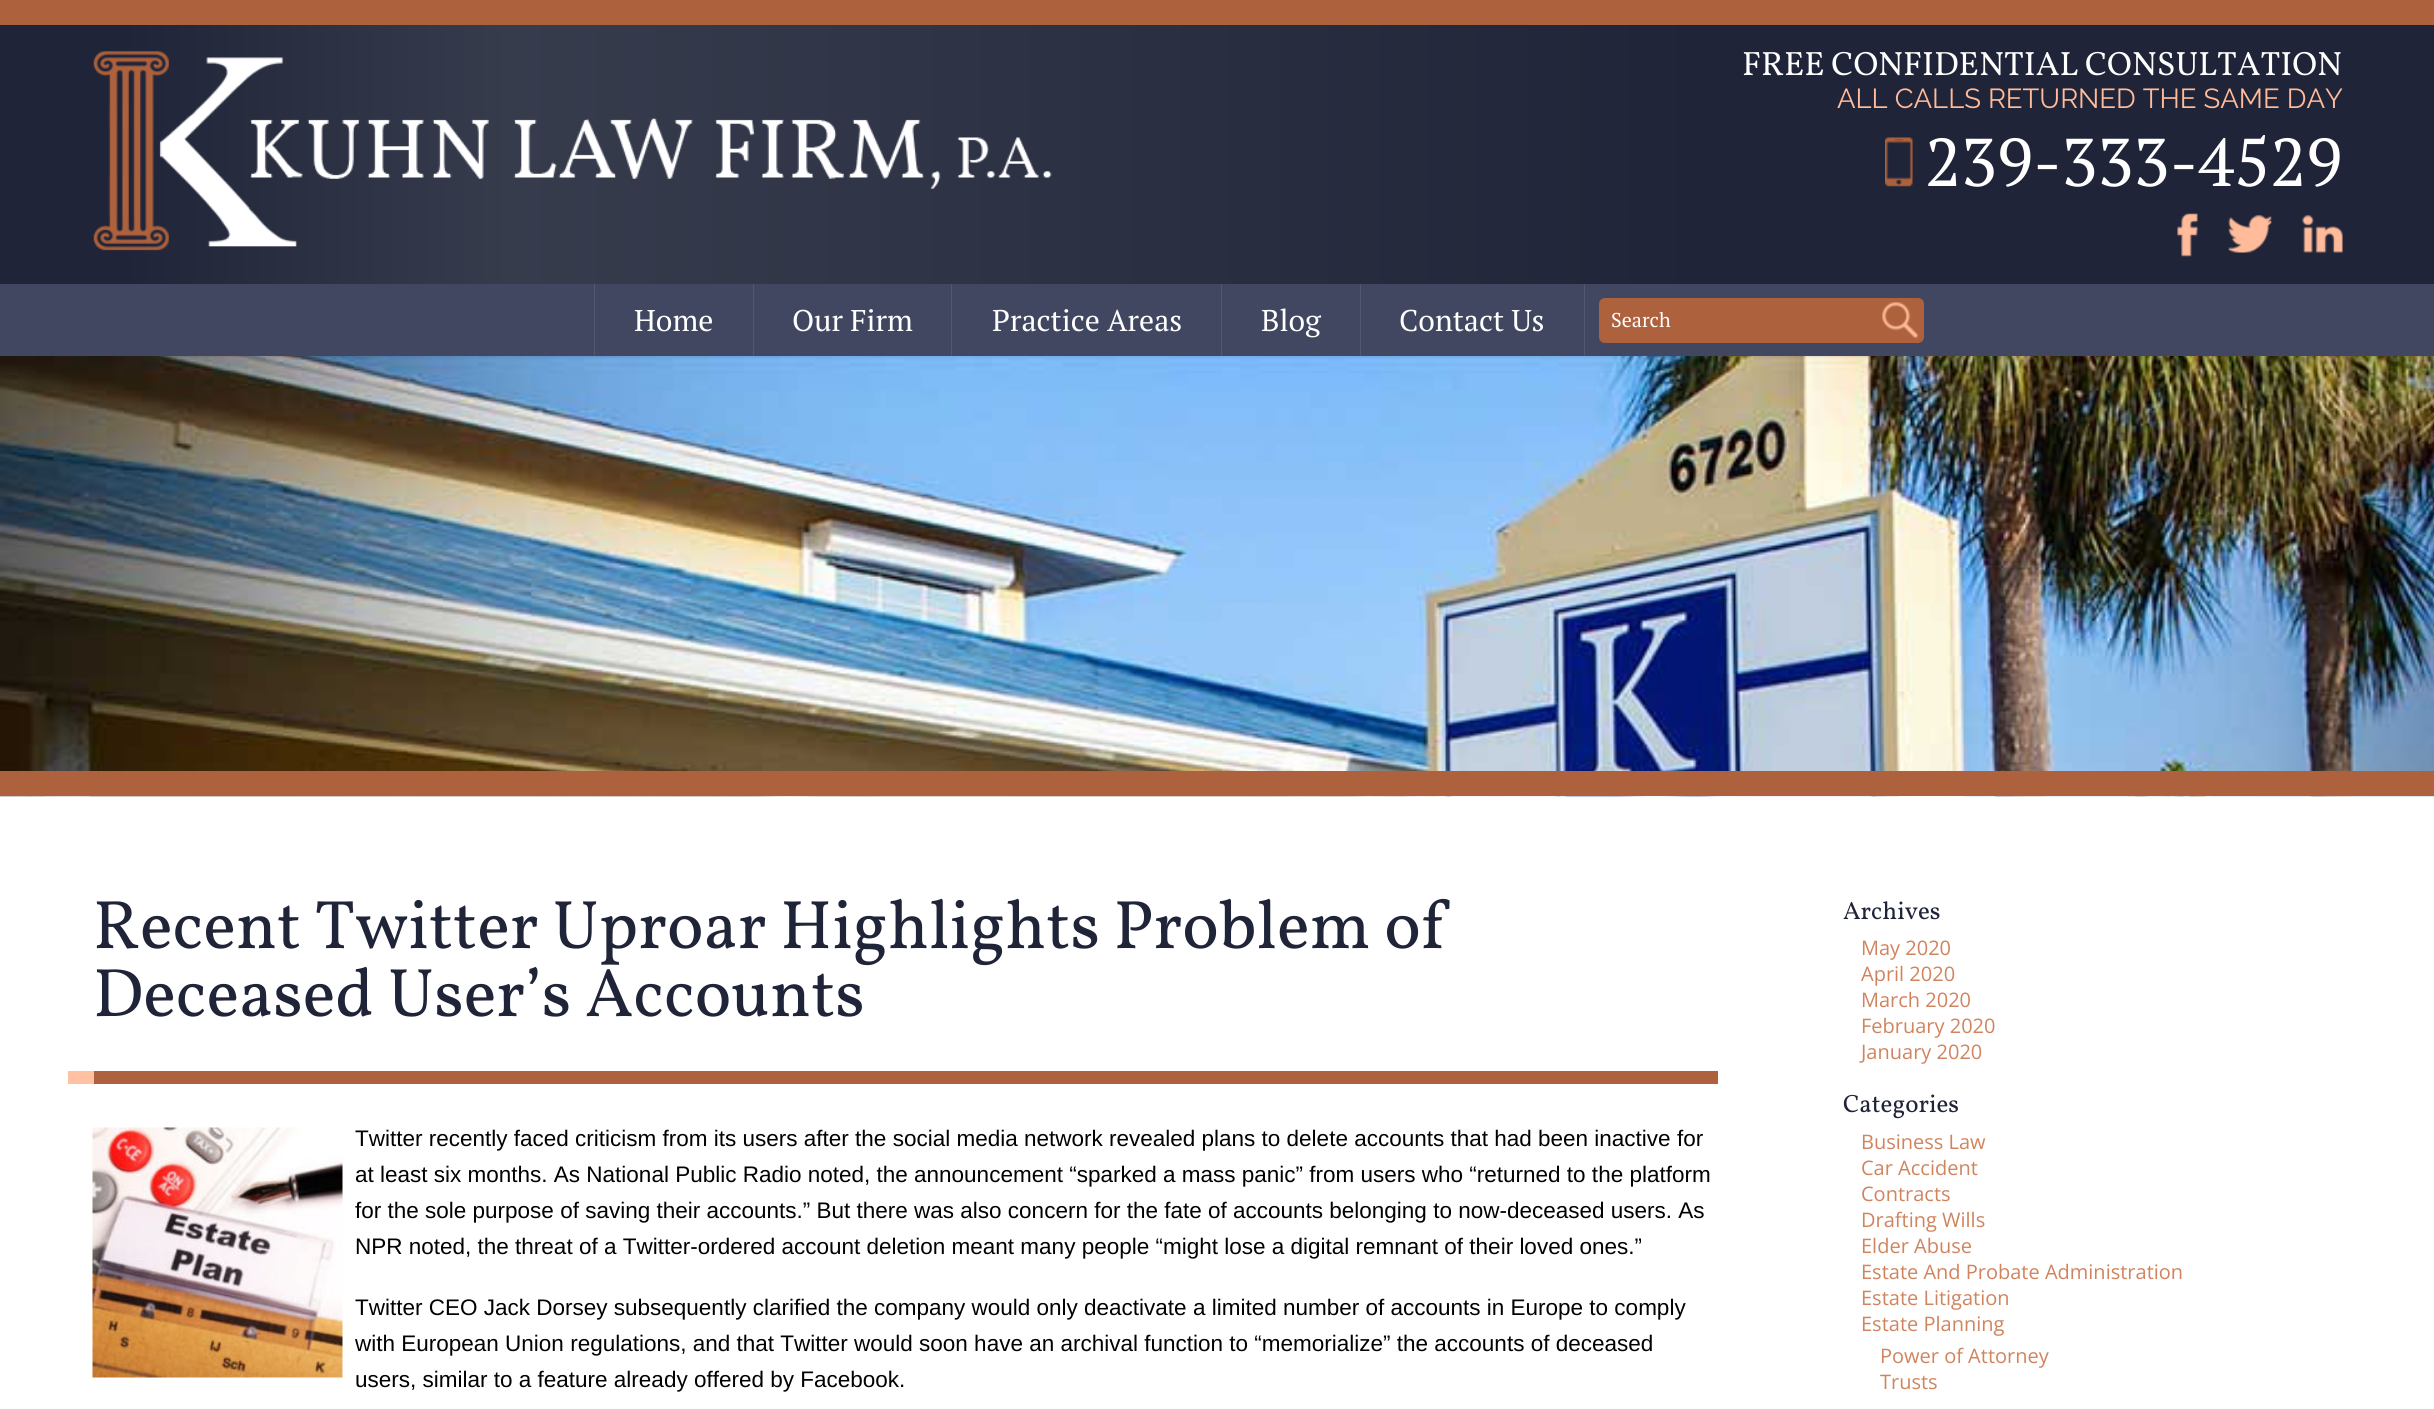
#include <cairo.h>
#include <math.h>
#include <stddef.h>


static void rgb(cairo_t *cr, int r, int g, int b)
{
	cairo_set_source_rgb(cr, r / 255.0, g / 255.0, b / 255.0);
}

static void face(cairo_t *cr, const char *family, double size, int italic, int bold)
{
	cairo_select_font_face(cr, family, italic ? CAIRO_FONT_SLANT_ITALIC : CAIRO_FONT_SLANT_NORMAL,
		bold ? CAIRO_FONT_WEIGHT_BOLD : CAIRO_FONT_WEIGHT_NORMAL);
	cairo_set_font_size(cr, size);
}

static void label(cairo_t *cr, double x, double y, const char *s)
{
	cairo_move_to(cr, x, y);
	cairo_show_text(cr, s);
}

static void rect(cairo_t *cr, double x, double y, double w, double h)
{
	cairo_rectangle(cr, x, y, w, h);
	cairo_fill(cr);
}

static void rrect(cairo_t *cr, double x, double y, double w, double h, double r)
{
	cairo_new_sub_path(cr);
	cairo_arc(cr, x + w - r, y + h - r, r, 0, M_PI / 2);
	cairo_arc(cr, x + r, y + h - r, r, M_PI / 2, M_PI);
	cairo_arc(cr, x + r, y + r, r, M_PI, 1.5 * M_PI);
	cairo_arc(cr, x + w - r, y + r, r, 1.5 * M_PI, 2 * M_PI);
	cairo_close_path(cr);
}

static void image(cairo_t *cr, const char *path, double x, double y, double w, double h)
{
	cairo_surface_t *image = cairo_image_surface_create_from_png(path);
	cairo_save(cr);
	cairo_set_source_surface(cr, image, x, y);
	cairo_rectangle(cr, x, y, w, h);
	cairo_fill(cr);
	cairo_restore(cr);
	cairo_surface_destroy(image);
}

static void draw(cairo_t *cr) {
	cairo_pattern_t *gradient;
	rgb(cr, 255, 255, 255);
	cairo_paint(cr);
	gradient = cairo_pattern_create_linear(0, 191, 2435, 191);
	cairo_pattern_add_color_stop_rgba(gradient, 0.05, 0.122, 0.141, 0.22, 1);
	cairo_pattern_add_color_stop_rgba(gradient, 0.21, 0.216, 0.235, 0.302, 1);
	cairo_pattern_add_color_stop_rgba(gradient, 0.7, 0.122, 0.141, 0.22, 1);
	cairo_set_source(cr, gradient);
	cairo_pattern_destroy(gradient);
	rect(cr, 0, 25, 2434, 259);
	rgb(cr, 173, 97, 60);
	rect(cr, 0, 0, 2434, 25);
	image(cr, "image0.png", 93, 51, 959, 200);
	face(cr, "Vollkorn", 33.75, 0, 0);
	rgb(cr, 255, 255, 255);
	label(cr, 1742, 75, "FREE CONFIDENTIAL CONSULTATION");
	face(cr, "Raleway", 27.5, 0, 0);
	rgb(cr, 255, 187, 154);
	label(cr, 1837, 108, "ALL CALLS RETURNED THE SAME DAY");
	image(cr, "image1.png", 1885, 137, 28, 50);
	face(cr, "PT Serif", 67.5, 0, 0);
	rgb(cr, 255, 255, 255);
	label(cr, 1925, 186, "239-333-4529");
	image(cr, "image2.png", 2177, 213, 21, 44);
	image(cr, "image3.png", 2228, 214, 44, 39);
	image(cr, "image4.png", 2302, 214, 41, 39);
	rgb(cr, 65, 71, 97);
	rect(cr, 0, 284, 2434, 72);
	rgb(cr, 82, 88, 111);
	rect(cr, 594, 284, 1, 72);
	face(cr, "PT Serif", 30, 0, 0);
	rgb(cr, 255, 255, 255);
	label(cr, 634, 331, "Home");
	rgb(cr, 82, 88, 111);
	rect(cr, 753, 284, 1, 72);
	rgb(cr, 255, 255, 255);
	label(cr, 792, 331, "Our Firm");
	rgb(cr, 82, 88, 111);
	rect(cr, 951, 284, 1, 72);
	rgb(cr, 255, 255, 255);
	label(cr, 992, 331, "Practice Areas");
	rgb(cr, 82, 88, 111);
	rect(cr, 1221, 284, 1, 72);
	rgb(cr, 255, 255, 255);
	label(cr, 1261, 331, "Blog");
	rgb(cr, 82, 88, 111);
	rect(cr, 1584, 284, 1, 72);
	rect(cr, 1360, 284, 1, 72);
	rgb(cr, 255, 255, 255);
	label(cr, 1399, 331, "Contact Us");
	rgb(cr, 173, 97, 60);
	rrect(cr, 1599, 298, 325, 45, 6);
	cairo_fill(cr);
	face(cr, "PT Serif", 20, 0, 0);
	rgb(cr, 255, 255, 255);
	label(cr, 1611, 327, "Search");
	image(cr, "image5.png", 1882, 302, 37, 37);
	image(cr, "image6.png", 0, 356, 2434, 441);
	rgb(cr, 173, 97, 60);
	rect(cr, 0, 771, 2434, 25);
	rect(cr, 94, 1071, 1624, 13);
	face(cr, "Vollkorn", 68.75, 0, 0);
	rgb(cr, 31, 36, 56);
	label(cr, 93, 948, "Recent Twitter Uproar Highlights Problem of");
	label(cr, 93, 1016, "Deceased User’s Accounts");
	rgb(cr, 255, 193, 162);
	rect(cr, 68, 1071, 26, 13);
	image(cr, "image7.png", 92, 1127, 251, 251);
	face(cr, "Liberation Sans", 22.5, 0, 0);
	rgb(cr, 0, 0, 0);
	label(cr, 355, 1146, "Twitter recently faced criticism from its users after the social media network revealed plans to delete accounts that had been inactive for");
	label(cr, 355, 1182, "at least six months. As National Public Radio noted, the announcement “sparked a mass panic” from users who “returned to the platform");
	label(cr, 355, 1218, "for the sole purpose of saving their accounts.” But there was also concern for the fate of accounts belonging to now-deceased users. As");
	label(cr, 355, 1254, "NPR noted, the threat of a Twitter-ordered account deletion meant many people “might lose a digital remnant of their loved ones.”");
	label(cr, 355, 1315, "Twitter CEO Jack Dorsey subsequently clarified the company would only deactivate a limited number of accounts in Europe to comply");
	label(cr, 355, 1351, "with European Union regulations, and that Twitter would soon have an archival function to “memorialize” the accounts of deceased");
	label(cr, 355, 1387, "users, similar to a feature already offered by Facebook.");
	face(cr, "Vollkorn", 25, 0, 0);
	rgb(cr, 31, 36, 56);
	label(cr, 1843, 919, "Archives");
	face(cr, "Open Sans", 20, 0, 0);
	rgb(cr, 208, 132, 94);
	label(cr, 1861, 955, "May 2020");
	label(cr, 1861, 981, "April 2020");
	label(cr, 1861, 1007, "March 2020");
	label(cr, 1861, 1033, "February 2020");
	label(cr, 1861, 1059, "January 2020");
	face(cr, "Vollkorn", 25, 0, 0);
	rgb(cr, 31, 36, 56);
	label(cr, 1843, 1112, "Categories");
	face(cr, "Open Sans", 20, 0, 0);
	rgb(cr, 208, 132, 94);
	label(cr, 1861, 1149, "Business Law");
	label(cr, 1861, 1175, "Car Accident");
	label(cr, 1861, 1201, "Contracts");
	label(cr, 1861, 1227, "Drafting Wills");
	label(cr, 1861, 1253, "Elder Abuse");
	label(cr, 1861, 1279, "Estate And Probate Administration");
	label(cr, 1861, 1305, "Estate Litigation");
	label(cr, 1861, 1331, "Estate Planning");
	label(cr, 1880, 1363, "Power of Attorney");
	label(cr, 1880, 1389, "Trusts");
}

int main(void) {
	cairo_surface_t *surface = cairo_image_surface_create(CAIRO_FORMAT_RGB24, 2434, 1409);
	cairo_t *cr = cairo_create(surface);
	cairo_font_options_t *options = cairo_font_options_create();
	cairo_font_options_set_hint_metrics(options, CAIRO_HINT_METRICS_OFF);
	cairo_font_options_set_hint_style(options, CAIRO_HINT_STYLE_NONE);
	cairo_set_font_options(cr, options);
	cairo_set_miter_limit(cr, 4);
	draw(cr);
	cairo_surface_write_to_png(surface, "render.png");
	cairo_font_options_destroy(options);
	cairo_destroy(cr);
	cairo_surface_destroy(surface);
	return 0;
}
